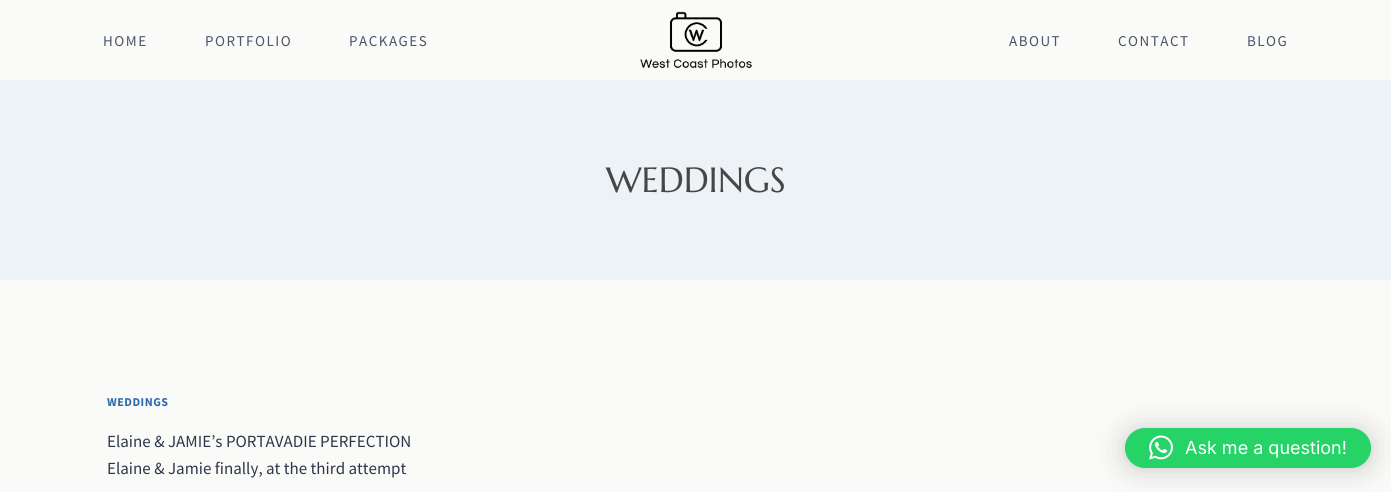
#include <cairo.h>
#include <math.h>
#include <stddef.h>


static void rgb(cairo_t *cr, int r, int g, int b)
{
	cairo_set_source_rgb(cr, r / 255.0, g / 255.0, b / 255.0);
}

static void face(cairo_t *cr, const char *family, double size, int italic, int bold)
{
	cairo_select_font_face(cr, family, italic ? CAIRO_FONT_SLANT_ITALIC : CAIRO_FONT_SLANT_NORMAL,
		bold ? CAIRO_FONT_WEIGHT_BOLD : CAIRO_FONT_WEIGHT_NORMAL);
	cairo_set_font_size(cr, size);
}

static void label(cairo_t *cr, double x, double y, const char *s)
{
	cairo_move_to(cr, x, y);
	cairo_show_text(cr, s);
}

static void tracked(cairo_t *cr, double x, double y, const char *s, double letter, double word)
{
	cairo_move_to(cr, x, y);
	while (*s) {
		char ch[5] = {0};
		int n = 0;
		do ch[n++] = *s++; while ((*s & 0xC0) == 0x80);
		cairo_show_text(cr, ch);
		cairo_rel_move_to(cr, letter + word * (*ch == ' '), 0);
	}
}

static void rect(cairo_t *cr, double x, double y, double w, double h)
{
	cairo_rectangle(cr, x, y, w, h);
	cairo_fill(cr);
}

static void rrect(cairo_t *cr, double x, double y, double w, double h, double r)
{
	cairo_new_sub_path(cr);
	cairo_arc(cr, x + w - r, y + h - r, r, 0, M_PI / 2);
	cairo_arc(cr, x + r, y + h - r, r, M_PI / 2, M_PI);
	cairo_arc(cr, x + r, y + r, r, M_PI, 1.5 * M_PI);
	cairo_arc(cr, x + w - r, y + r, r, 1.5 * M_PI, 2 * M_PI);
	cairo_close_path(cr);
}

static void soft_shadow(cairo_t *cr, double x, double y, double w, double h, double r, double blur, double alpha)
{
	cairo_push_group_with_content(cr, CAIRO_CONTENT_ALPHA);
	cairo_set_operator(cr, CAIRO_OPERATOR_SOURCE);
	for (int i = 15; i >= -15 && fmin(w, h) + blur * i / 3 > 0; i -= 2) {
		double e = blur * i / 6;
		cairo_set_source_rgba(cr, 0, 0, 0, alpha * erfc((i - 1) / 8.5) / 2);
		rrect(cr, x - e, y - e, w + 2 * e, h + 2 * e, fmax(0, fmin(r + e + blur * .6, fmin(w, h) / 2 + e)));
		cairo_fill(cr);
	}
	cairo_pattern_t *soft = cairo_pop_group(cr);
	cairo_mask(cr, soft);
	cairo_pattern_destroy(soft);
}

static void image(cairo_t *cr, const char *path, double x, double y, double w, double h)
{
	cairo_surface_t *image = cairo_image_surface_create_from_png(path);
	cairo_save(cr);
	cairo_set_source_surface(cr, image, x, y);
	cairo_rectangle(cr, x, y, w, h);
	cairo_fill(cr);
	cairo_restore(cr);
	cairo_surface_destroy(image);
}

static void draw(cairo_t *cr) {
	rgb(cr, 250, 250, 248);
	cairo_paint(cr);
	face(cr, "Source Sans Pro", 15, 0, 0);
	rgb(cr, 74, 85, 104);
	tracked(cr, 103, 46, "HOME", 1.5, 0);
	tracked(cr, 205, 46, "PORTFOLIO", 1.5, 0);
	tracked(cr, 349, 46, "PACKAGES", 1.5, 0);
	image(cr, "image0.png", 640, 11, 112, 58);
	tracked(cr, 1009, 46, "ABOUT", 1.5, 0);
	tracked(cr, 1118, 46, "CONTACT", 1.5, 0);
	tracked(cr, 1247, 46, "BLOG", 1.5, 0);
	rgb(cr, 237, 242, 247);
	rect(cr, 0, 80, 1391, 200);
	face(cr, "Marcellus", 35, 0, 0);
	rgb(cr, 70, 70, 70);
	label(cr, 606, 192, "WEDDINGS");
	face(cr, "Source Sans Pro", 12, 0, 1);
	rgb(cr, 43, 108, 176);
	tracked(cr, 107, 406, "WEDDINGS", 0.5, 0);
	face(cr, "Source Sans Pro", 17, 0, 0);
	rgb(cr, 45, 55, 72);
	label(cr, 107, 447, "Elaine & JAMIE’s PORTAVADIE PERFECTION");
	label(cr, 107, 474, "Elaine & Jamie finally, at the third attempt");
	rgb(cr, 0, 0, 0);
	soft_shadow(cr, 1125, 430, 246, 40, 20, 16, 0.16);
	soft_shadow(cr, 1125, 429, 246, 40, 20, 3, 0.06);
	rgb(cr, 37, 211, 102);
	rrect(cr, 1125, 428, 246, 40, 20);
	cairo_fill(cr);
	image(cr, "image1.png", 1149, 435, 24, 25);
	face(cr, "Inter", 18, 0, 0);
	rgb(cr, 255, 255, 255);
	label(cr, 1185, 454, "Ask me a question!");
}

int main(void) {
	cairo_surface_t *surface = cairo_image_surface_create(CAIRO_FORMAT_RGB24, 1391, 492);
	cairo_t *cr = cairo_create(surface);
	cairo_font_options_t *options = cairo_font_options_create();
	cairo_font_options_set_hint_metrics(options, CAIRO_HINT_METRICS_OFF);
	cairo_font_options_set_hint_style(options, CAIRO_HINT_STYLE_NONE);
	cairo_set_font_options(cr, options);
	cairo_set_miter_limit(cr, 4);
	draw(cr);
	cairo_surface_write_to_png(surface, "render.png");
	cairo_font_options_destroy(options);
	cairo_destroy(cr);
	cairo_surface_destroy(surface);
	return 0;
}
